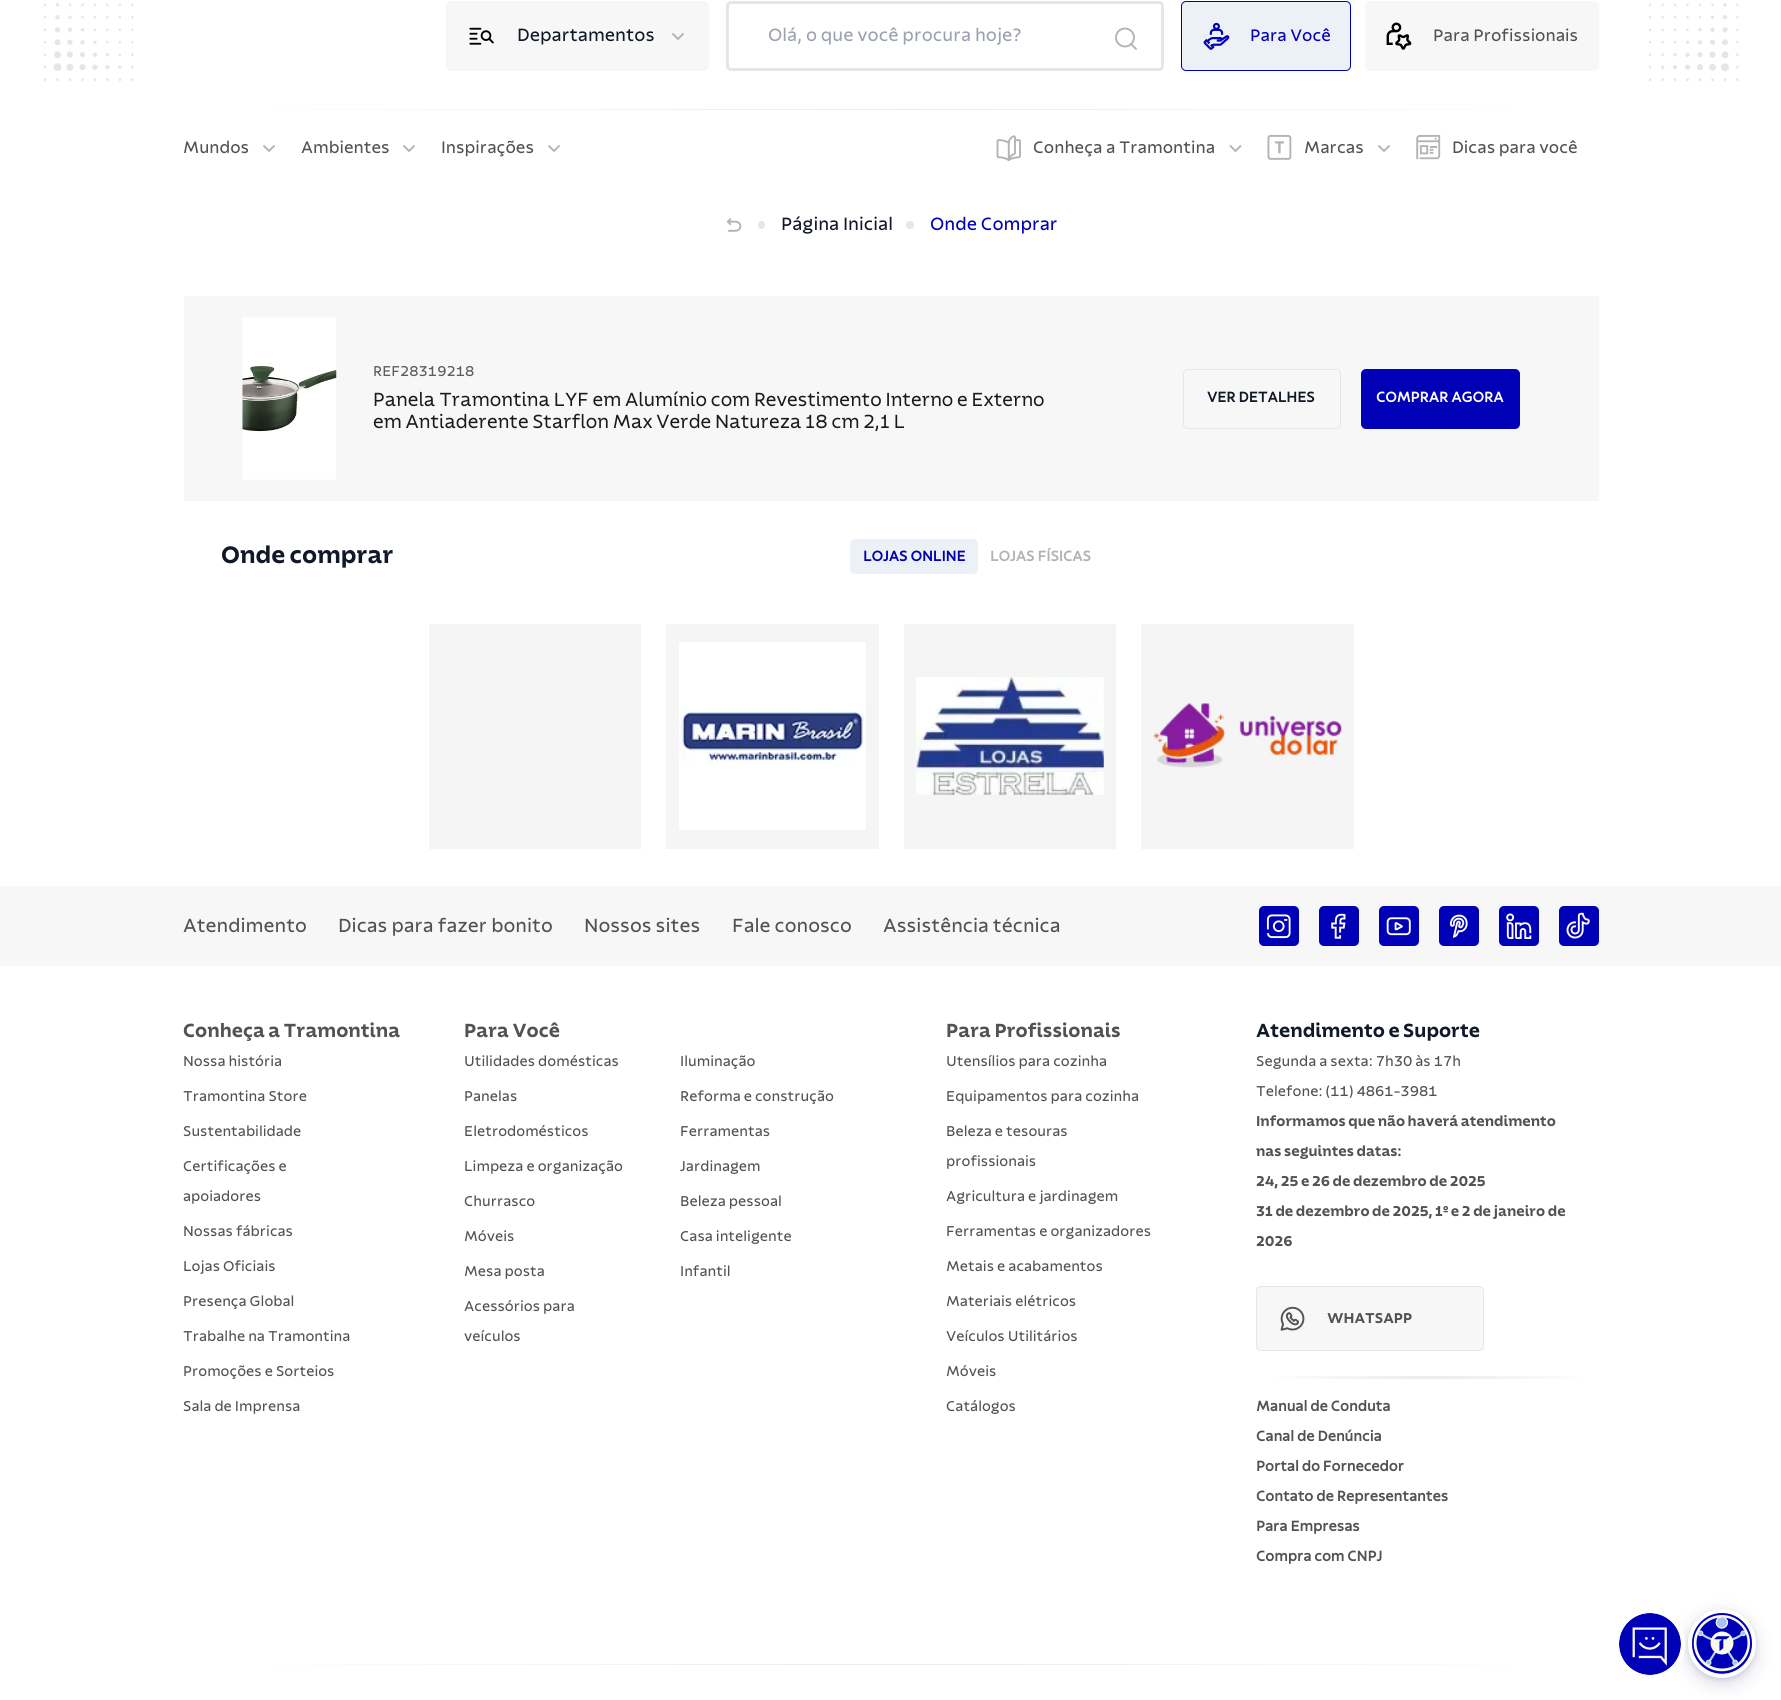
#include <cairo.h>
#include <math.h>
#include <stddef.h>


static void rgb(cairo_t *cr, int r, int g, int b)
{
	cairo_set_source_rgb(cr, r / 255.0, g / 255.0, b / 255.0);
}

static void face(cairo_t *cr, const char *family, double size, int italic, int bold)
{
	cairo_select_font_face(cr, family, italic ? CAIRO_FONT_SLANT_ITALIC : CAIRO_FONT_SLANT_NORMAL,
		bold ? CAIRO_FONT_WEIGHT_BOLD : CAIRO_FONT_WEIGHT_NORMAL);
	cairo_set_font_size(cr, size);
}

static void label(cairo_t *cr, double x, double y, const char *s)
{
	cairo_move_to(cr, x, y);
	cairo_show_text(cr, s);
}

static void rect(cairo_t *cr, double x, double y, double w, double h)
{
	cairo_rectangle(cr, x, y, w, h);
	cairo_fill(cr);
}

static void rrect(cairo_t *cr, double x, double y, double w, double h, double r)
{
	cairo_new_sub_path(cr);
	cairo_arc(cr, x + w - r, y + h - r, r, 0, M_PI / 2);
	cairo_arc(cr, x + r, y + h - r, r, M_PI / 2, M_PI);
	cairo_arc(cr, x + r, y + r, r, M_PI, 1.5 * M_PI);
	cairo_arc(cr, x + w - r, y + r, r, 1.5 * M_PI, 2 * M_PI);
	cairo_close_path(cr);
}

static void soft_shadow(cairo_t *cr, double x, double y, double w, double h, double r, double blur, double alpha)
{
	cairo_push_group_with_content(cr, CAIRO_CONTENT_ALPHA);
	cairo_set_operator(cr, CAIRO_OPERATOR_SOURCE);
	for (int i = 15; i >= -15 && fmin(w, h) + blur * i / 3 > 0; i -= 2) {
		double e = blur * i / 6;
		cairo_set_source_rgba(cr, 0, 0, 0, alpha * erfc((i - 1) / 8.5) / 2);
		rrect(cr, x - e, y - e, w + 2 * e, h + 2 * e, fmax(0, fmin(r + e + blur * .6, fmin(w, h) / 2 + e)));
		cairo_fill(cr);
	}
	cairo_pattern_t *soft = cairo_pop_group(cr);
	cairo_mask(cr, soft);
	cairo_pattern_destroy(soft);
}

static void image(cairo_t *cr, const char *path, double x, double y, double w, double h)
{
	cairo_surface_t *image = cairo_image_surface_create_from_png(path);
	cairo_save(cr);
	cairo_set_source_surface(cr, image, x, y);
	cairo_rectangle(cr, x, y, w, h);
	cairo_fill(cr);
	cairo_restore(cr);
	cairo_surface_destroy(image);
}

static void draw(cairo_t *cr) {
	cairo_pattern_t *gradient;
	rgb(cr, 255, 255, 255);
	cairo_paint(cr);
	image(cr, "image0.png", 44, 3, 90, 78);
	rgb(cr, 247, 247, 247);
	rrect(cr, 446, 1, 263, 70, 5);
	cairo_fill(cr);
	image(cr, "image1.png", 469, 27, 25, 18);
	face(cr, "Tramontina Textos", 18.75, 0, 0);
	rgb(cr, 17, 24, 39);
	label(cr, 517, 41, "Departamentos");
	cairo_new_path(cr);
	cairo_move_to(cr, 673, 34);
	cairo_line_to(cr, 678, 39);
	cairo_line_to(cr, 683, 34);
	rgb(cr, 179, 179, 179);
	cairo_set_line_width(cr, 1.9);
	cairo_set_line_cap(cr, CAIRO_LINE_CAP_ROUND);
	cairo_set_line_join(cr, CAIRO_LINE_JOIN_ROUND);
	cairo_stroke(cr);
	rrect(cr, 727.5, 2.5, 435, 67, 3.5);
	rgb(cr, 230, 230, 230);
	cairo_set_line_width(cr, 3);
	cairo_set_line_cap(cr, CAIRO_LINE_CAP_BUTT);
	cairo_set_line_join(cr, CAIRO_LINE_JOIN_MITER);
	cairo_stroke(cr);
	cairo_arc(cr, 1125, 37.5, 9, 0, 2 * M_PI);
	rgb(cr, 179, 179, 179);
	cairo_set_line_width(cr, 1.9);
	cairo_stroke(cr);
	cairo_new_path(cr);
	cairo_move_to(cr, 1136, 49);
	cairo_line_to(cr, 1131, 44);
	cairo_set_line_cap(cr, CAIRO_LINE_CAP_ROUND);
	cairo_set_line_join(cr, CAIRO_LINE_JOIN_ROUND);
	cairo_stroke(cr);
	rgb(cr, 156, 163, 175);
	label(cr, 768, 41, "Olá, o que você procura hoje?");
	rgb(cr, 236, 240, 247);
	rrect(cr, 1181.5, 1.5, 169, 69, 4.5);
	cairo_fill_preserve(cr);
	rgb(cr, 0, 0, 183);
	cairo_set_line_width(cr, 1);
	cairo_set_line_cap(cr, CAIRO_LINE_CAP_BUTT);
	cairo_set_line_join(cr, CAIRO_LINE_JOIN_MITER);
	cairo_stroke(cr);
	image(cr, "image2.png", 1203, 22, 27, 28);
	face(cr, "Tramontina Textos", 17.5, 0, 0);
	label(cr, 1250, 41, "Para Você");
	rgb(cr, 247, 247, 247);
	rrect(cr, 1365, 1, 234, 70, 5);
	cairo_fill(cr);
	image(cr, "image3.png", 1386, 22, 26, 28);
	rgb(cr, 82, 82, 82);
	label(cr, 1433, 41, "Para Profissionais");
	image(cr, "image4.png", 1649, 3, 90, 78);
	gradient = cairo_pattern_create_linear(184, 109, 1599, 109);
	cairo_pattern_add_color_stop_rgba(gradient, 0, 1, 1, 1, 1);
	cairo_pattern_add_color_stop_rgba(gradient, 0.51, 0.922, 0.922, 0.922, 1);
	cairo_pattern_add_color_stop_rgba(gradient, 1, 1, 1, 1, 1);
	cairo_set_source(cr, gradient);
	cairo_pattern_destroy(gradient);
	rect(cr, 274, 109, 1238, 1);
	rgb(cr, 82, 82, 82);
	label(cr, 183, 153, "Mundos");
	cairo_new_path(cr);
	cairo_move_to(cr, 264, 146);
	cairo_line_to(cr, 269, 151);
	cairo_line_to(cr, 274, 146);
	rgb(cr, 179, 179, 179);
	cairo_set_line_width(cr, 1.9);
	cairo_set_line_cap(cr, CAIRO_LINE_CAP_ROUND);
	cairo_set_line_join(cr, CAIRO_LINE_JOIN_ROUND);
	cairo_stroke(cr);
	rgb(cr, 82, 82, 82);
	label(cr, 301, 153, "Ambientes");
	cairo_new_path(cr);
	cairo_move_to(cr, 404, 146);
	cairo_line_to(cr, 409, 151);
	cairo_line_to(cr, 414, 146);
	rgb(cr, 179, 179, 179);
	cairo_stroke(cr);
	rgb(cr, 82, 82, 82);
	label(cr, 441, 153, "Inspirações");
	cairo_new_path(cr);
	cairo_move_to(cr, 549, 146);
	cairo_line_to(cr, 554, 151);
	cairo_line_to(cr, 559, 146);
	rgb(cr, 179, 179, 179);
	cairo_stroke(cr);
	image(cr, "image5.png", 996, 135, 25, 26);
	rgb(cr, 82, 82, 82);
	label(cr, 1033, 153, "Conheça a Tramontina");
	cairo_new_path(cr);
	cairo_move_to(cr, 1230.5, 146);
	cairo_line_to(cr, 1235.5, 151);
	cairo_line_to(cr, 1240.5, 146);
	rgb(cr, 179, 179, 179);
	cairo_stroke(cr);
	image(cr, "image6.png", 1267, 135, 25, 25);
	rgb(cr, 82, 82, 82);
	label(cr, 1304, 153, "Marcas");
	cairo_new_path(cr);
	cairo_move_to(cr, 1379, 146);
	cairo_line_to(cr, 1384, 151);
	cairo_line_to(cr, 1389, 146);
	rgb(cr, 179, 179, 179);
	cairo_stroke(cr);
	image(cr, "image7.png", 1416, 135, 25, 25);
	rgb(cr, 82, 82, 82);
	label(cr, 1452, 153, "Dicas para você");
	image(cr, "image8.png", 727, 218, 15, 14);
	rgb(cr, 230, 230, 230);
	rrect(cr, 758, 221, 7, 8, 3.5);
	cairo_fill(cr);
	face(cr, "Tramontina Textos", 18.75, 0, 0);
	rgb(cr, 17, 24, 39);
	label(cr, 781, 230, "Página Inicial");
	rgb(cr, 230, 230, 230);
	cairo_new_path(cr);
	cairo_arc(cr, 910, 225, 4, 0, 2 * M_PI);
	cairo_fill(cr);
	rgb(cr, 0, 0, 183);
	label(cr, 930, 230, "Onde Comprar");
	rgb(cr, 247, 247, 247);
	rect(cr, 184, 296, 1415, 205);
	image(cr, "image9.png", 242, 317, 95, 163);
	face(cr, "Tramontina Textos", 15, 0, 0);
	rgb(cr, 92, 92, 92);
	label(cr, 373, 376, "REF28319218");
	face(cr, "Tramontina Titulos", 20, 0, 0);
	rgb(cr, 26, 26, 26);
	label(cr, 373, 406, "Panela Tramontina LYF em Alumínio com Revestimento Interno e Externo");
	label(cr, 373, 428, "em Antiaderente Starflon Max Verde Natureza 18 cm 2,1 L");
	rrect(cr, 1183.5, 369.5, 157, 59, 4.5);
	rgb(cr, 230, 230, 230);
	cairo_set_line_width(cr, 1);
	cairo_set_line_cap(cr, CAIRO_LINE_CAP_BUTT);
	cairo_set_line_join(cr, CAIRO_LINE_JOIN_MITER);
	cairo_stroke(cr);
	face(cr, "Tramontina Textos", 15, 0, 1);
	rgb(cr, 17, 24, 39);
	label(cr, 1207, 402, "VER DETALHES");
	rgb(cr, 0, 0, 183);
	rrect(cr, 1361, 369, 159, 60, 5);
	cairo_fill(cr);
	rgb(cr, 255, 255, 255);
	label(cr, 1376, 402, "COMPRAR AGORA");
	face(cr, "Tramontina Titulos", 25, 0, 1);
	rgb(cr, 17, 24, 39);
	label(cr, 221, 563, "Onde comprar");
	rgb(cr, 236, 240, 247);
	rrect(cr, 850, 539, 128, 35, 5);
	cairo_fill(cr);
	face(cr, "Tramontina Textos", 15, 0, 1);
	rgb(cr, 0, 0, 183);
	label(cr, 863, 561, "LOJAS ONLINE");
	rgb(cr, 178, 178, 178);
	label(cr, 990, 561, "LOJAS FÍSICAS");
	rgb(cr, 245, 245, 245);
	rect(cr, 429, 624, 212, 225);
	rect(cr, 666, 624, 213, 225);
	image(cr, "image10.png", 679, 642, 187, 188);
	rect(cr, 904, 624, 212, 225);
	image(cr, "image11.png", 916, 677, 188, 118);
	rect(cr, 1141, 624, 213, 225);
	image(cr, "image12.png", 1153, 703, 189, 65);
	rgb(cr, 247, 247, 247);
	rect(cr, 0, 886, 1781, 80);
	face(cr, "Tramontina Textos", 20, 0, 0);
	rgb(cr, 82, 82, 82);
	label(cr, 183, 932, "Atendimento");
	label(cr, 338, 932, "Dicas para fazer bonito");
	label(cr, 584, 932, "Nossos sites");
	label(cr, 732, 932, "Fale conosco");
	label(cr, 883, 932, "Assistência técnica");
	image(cr, "image13.png", 1259, 906, 40, 40);
	image(cr, "image14.png", 1319, 906, 40, 40);
	image(cr, "image15.png", 1379, 906, 40, 40);
	image(cr, "image16.png", 1439, 906, 40, 40);
	image(cr, "image17.png", 1499, 906, 40, 40);
	image(cr, "image18.png", 1559, 906, 40, 40);
	face(cr, "Tramontina Titulos", 20, 0, 1);
	label(cr, 183, 1037, "Conheça a Tramontina");
	face(cr, "Tramontina Textos", 15, 0, 0);
	label(cr, 183, 1066, "Nossa história");
	label(cr, 183, 1101, "Tramontina Store");
	label(cr, 183, 1136, "Sustentabilidade");
	label(cr, 183, 1171, "Certificações e");
	label(cr, 183, 1201, "apoiadores");
	label(cr, 183, 1236, "Nossas fábricas");
	label(cr, 183, 1271, "Lojas Oficiais");
	label(cr, 183, 1306, "Presença Global");
	label(cr, 183, 1341, "Trabalhe na Tramontina");
	label(cr, 183, 1376, "Promoções e Sorteios");
	label(cr, 183, 1411, "Sala de Imprensa");
	face(cr, "Tramontina Titulos", 20, 0, 1);
	label(cr, 464, 1037, "Para Você");
	face(cr, "Tramontina Textos", 15, 0, 0);
	label(cr, 464, 1066, "Utilidades domésticas");
	label(cr, 680, 1066, "Iluminação");
	label(cr, 464, 1101, "Panelas");
	label(cr, 680, 1101, "Reforma e construção");
	label(cr, 464, 1136, "Eletrodomésticos");
	label(cr, 680, 1136, "Ferramentas");
	label(cr, 464, 1171, "Limpeza e organização");
	label(cr, 680, 1171, "Jardinagem");
	label(cr, 464, 1206, "Churrasco");
	label(cr, 680, 1206, "Beleza pessoal");
	label(cr, 464, 1241, "Móveis");
	label(cr, 680, 1241, "Casa inteligente");
	label(cr, 464, 1276, "Mesa posta");
	label(cr, 680, 1276, "Infantil");
	label(cr, 464, 1311, "Acessórios para");
	label(cr, 464, 1341, "veículos");
	face(cr, "Tramontina Titulos", 20, 0, 1);
	label(cr, 946, 1037, "Para Profissionais");
	face(cr, "Tramontina Textos", 15, 0, 0);
	label(cr, 946, 1066, "Utensílios para cozinha");
	label(cr, 946, 1101, "Equipamentos para cozinha");
	label(cr, 946, 1136, "Beleza e tesouras");
	label(cr, 946, 1166, "profissionais");
	label(cr, 946, 1201, "Agricultura e jardinagem");
	label(cr, 946, 1236, "Ferramentas e organizadores");
	label(cr, 946, 1271, "Metais e acabamentos");
	label(cr, 946, 1306, "Materiais elétricos");
	label(cr, 946, 1341, "Veículos Utilitários");
	label(cr, 946, 1376, "Móveis");
	label(cr, 946, 1411, "Catálogos");
	face(cr, "Tramontina Titulos", 20, 0, 1);
	rgb(cr, 17, 24, 39);
	label(cr, 1256, 1037, "Atendimento e Suporte");
	face(cr, "Tramontina Textos", 15, 0, 0);
	rgb(cr, 82, 82, 82);
	label(cr, 1256, 1066, "Segunda a sexta: 7h30 às 17h");
	label(cr, 1256, 1096, "Telefone: (11) 4861-3981");
	face(cr, "Tramontina Titulos", 15, 0, 1);
	label(cr, 1256, 1126, "Informamos que não haverá atendimento");
	label(cr, 1256, 1156, "nas seguintes datas:");
	label(cr, 1256, 1186, "24, 25 e 26 de dezembro de 2025");
	label(cr, 1256, 1216, "31 de dezembro de 2025, 1º e 2 de janeiro de");
	label(cr, 1256, 1246, "2026");
	rgb(cr, 247, 247, 247);
	rrect(cr, 1256.5, 1286.5, 227, 64, 4.5);
	cairo_fill_preserve(cr);
	rgb(cr, 230, 230, 230);
	cairo_stroke(cr);
	image(cr, "image19.png", 1280, 1306, 25, 25);
	rgb(cr, 82, 82, 82);
	label(cr, 1327, 1323, "WHATSAPP");
	gradient = cairo_pattern_create_linear(1256, 1378, 1599, 1378);
	cairo_pattern_add_color_stop_rgba(gradient, 0, 1, 1, 1, 1);
	cairo_pattern_add_color_stop_rgba(gradient, 0.51, 0.922, 0.922, 0.922, 1);
	cairo_pattern_add_color_stop_rgba(gradient, 1, 1, 1, 1, 1);
	cairo_set_source(cr, gradient);
	cairo_pattern_destroy(gradient);
	rect(cr, 1278, 1376, 300, 3);
	face(cr, "Tramontina Textos", 15, 0, 1);
	rgb(cr, 82, 82, 82);
	label(cr, 1256, 1411, "Manual de Conduta");
	label(cr, 1256, 1441, "Canal de Denúncia");
	label(cr, 1256, 1471, "Portal do Fornecedor");
	label(cr, 1256, 1501, "Contato de Representantes");
	label(cr, 1256, 1531, "Para Empresas");
	label(cr, 1256, 1561, "Compra com CNPJ");
	gradient = cairo_pattern_create_linear(184, 1664, 1599, 1664);
	cairo_pattern_add_color_stop_rgba(gradient, 0, 1, 1, 1, 1);
	cairo_pattern_add_color_stop_rgba(gradient, 0.51, 0.922, 0.922, 0.922, 1);
	cairo_pattern_add_color_stop_rgba(gradient, 1, 1, 1, 1, 1);
	cairo_set_source(cr, gradient);
	cairo_pattern_destroy(gradient);
	rect(cr, 274, 1664, 1238, 1);
	rgb(cr, 93, 100, 148);
	soft_shadow(cr, 1688, 1611, 68, 69, 34, 2.5, 0.2);
	rgb(cr, 37, 44, 97);
	soft_shadow(cr, 1688, 1615, 68, 69, 34, 9.5, 0.15);
	image(cr, "image20.png", 1619, 1613, 62, 62);
	cairo_arc(cr, 1650, 1644, 33, 0, 2 * M_PI);
	rgb(cr, 255, 255, 255);
	cairo_set_line_width(cr, 4);
	cairo_stroke(cr);
	image(cr, "image21.png", 1692, 1613, 60, 61);
	rrect(cr, 1690, 1611, 64, 65, 32);
	cairo_stroke(cr);
}

int main(void) {
	cairo_surface_t *surface = cairo_image_surface_create(CAIRO_FORMAT_RGB24, 1781, 1700);
	cairo_t *cr = cairo_create(surface);
	cairo_font_options_t *options = cairo_font_options_create();
	cairo_font_options_set_hint_metrics(options, CAIRO_HINT_METRICS_OFF);
	cairo_font_options_set_hint_style(options, CAIRO_HINT_STYLE_NONE);
	cairo_set_font_options(cr, options);
	cairo_set_miter_limit(cr, 4);
	draw(cr);
	cairo_surface_write_to_png(surface, "render.png");
	cairo_font_options_destroy(options);
	cairo_destroy(cr);
	cairo_surface_destroy(surface);
	return 0;
}
